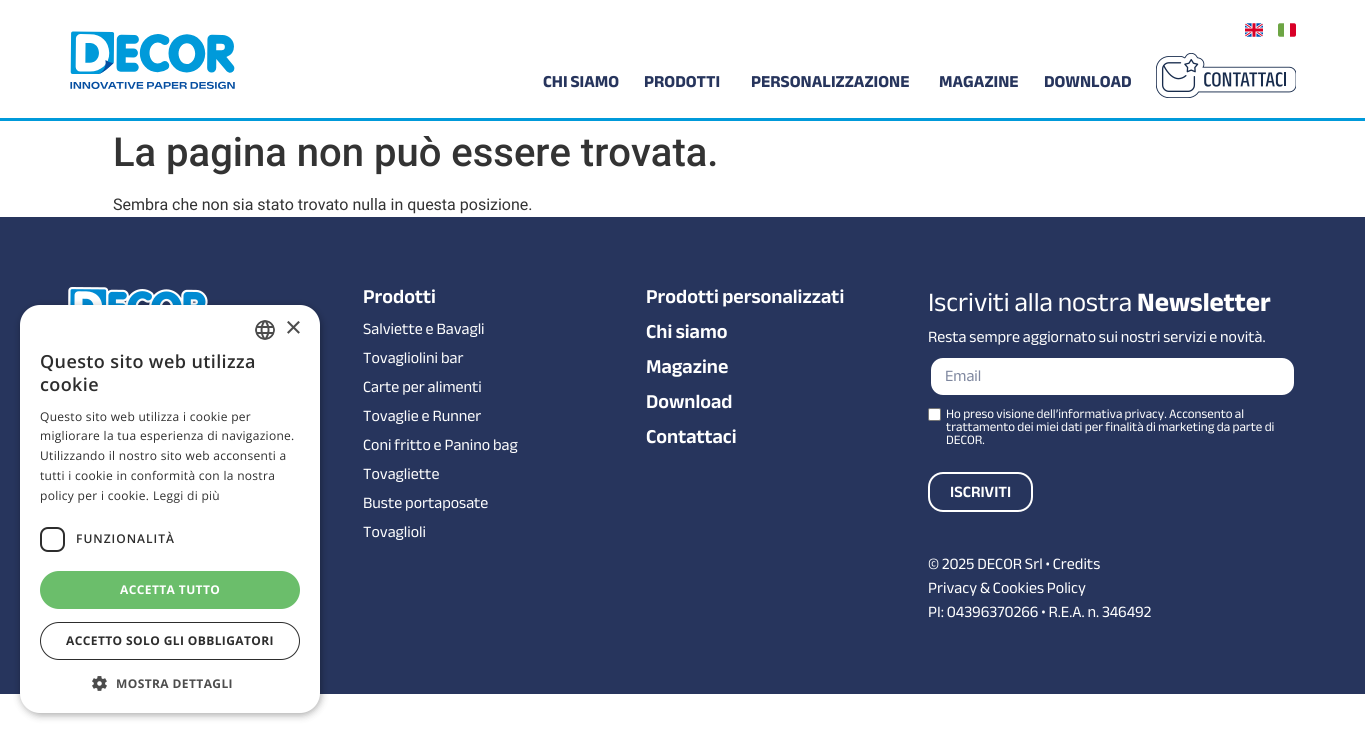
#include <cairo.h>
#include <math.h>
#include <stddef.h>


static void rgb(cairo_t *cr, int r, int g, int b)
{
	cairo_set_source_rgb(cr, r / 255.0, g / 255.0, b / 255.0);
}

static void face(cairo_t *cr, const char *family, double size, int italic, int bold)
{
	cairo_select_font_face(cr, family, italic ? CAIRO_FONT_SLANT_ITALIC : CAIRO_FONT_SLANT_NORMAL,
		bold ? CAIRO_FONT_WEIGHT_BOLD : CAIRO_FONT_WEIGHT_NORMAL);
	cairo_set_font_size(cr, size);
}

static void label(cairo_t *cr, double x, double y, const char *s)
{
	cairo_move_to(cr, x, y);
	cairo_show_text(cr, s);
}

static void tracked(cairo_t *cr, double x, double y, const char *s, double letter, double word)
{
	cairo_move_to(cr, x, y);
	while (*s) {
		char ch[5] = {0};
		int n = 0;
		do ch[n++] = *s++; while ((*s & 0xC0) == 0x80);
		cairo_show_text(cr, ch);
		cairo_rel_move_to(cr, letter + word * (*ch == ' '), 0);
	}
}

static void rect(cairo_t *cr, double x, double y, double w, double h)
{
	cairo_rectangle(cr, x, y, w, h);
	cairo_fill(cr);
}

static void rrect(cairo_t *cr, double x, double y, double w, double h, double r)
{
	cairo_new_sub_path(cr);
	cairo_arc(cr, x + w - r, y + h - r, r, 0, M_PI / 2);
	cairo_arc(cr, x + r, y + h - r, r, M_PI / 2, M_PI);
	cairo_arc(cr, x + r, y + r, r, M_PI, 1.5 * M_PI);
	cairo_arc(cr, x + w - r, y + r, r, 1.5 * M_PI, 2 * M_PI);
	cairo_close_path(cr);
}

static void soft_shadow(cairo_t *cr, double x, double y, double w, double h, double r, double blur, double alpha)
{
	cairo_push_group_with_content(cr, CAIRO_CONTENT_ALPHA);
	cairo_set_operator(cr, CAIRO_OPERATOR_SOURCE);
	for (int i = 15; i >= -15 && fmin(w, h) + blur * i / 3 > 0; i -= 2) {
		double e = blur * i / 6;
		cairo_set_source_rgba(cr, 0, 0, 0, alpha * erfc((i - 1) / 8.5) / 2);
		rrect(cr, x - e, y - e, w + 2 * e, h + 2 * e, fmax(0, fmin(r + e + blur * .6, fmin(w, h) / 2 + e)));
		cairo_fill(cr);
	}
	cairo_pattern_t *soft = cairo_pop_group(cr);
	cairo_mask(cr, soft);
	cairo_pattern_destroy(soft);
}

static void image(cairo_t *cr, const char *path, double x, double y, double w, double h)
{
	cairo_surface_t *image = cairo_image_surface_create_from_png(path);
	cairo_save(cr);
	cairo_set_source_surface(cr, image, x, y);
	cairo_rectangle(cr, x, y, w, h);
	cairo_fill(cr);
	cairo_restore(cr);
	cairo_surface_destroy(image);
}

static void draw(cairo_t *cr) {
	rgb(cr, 255, 255, 255);
	cairo_paint(cr);
	rgb(cr, 0, 154, 218);
	rect(cr, 0, 118, 1365, 3);
	image(cr, "image0.png", 70, 31, 165, 58);
	image(cr, "image1.png", 1245, 23, 18, 14);
	image(cr, "image2.png", 1278, 23, 18, 14);
	face(cr, "Anek Bangla", 17, 0, 1);
	rgb(cr, 39, 53, 93);
	label(cr, 543, 87, "CHI SIAMO");
	label(cr, 644, 87, "PRODOTTI");
	label(cr, 751, 87, "PERSONALIZZAZIONE");
	label(cr, 939, 87, "MAGAZINE");
	label(cr, 1044, 87, "DOWNLOAD");
	image(cr, "image3.png", 1156, 53, 140, 45);
	face(cr, "Roboto Medium", 40, 0, 0);
	rgb(cr, 51, 51, 51);
	label(cr, 113, 166, "La pagina non può essere trovata.");
	face(cr, "Roboto", 16, 0, 0);
	label(cr, 113, 210, "Sembra che non sia stato trovato nulla in questa posizione.");
	rgb(cr, 39, 53, 93);
	rect(cr, 0, 217, 1365, 477);
	image(cr, "image6.png", 68, 287, 140, 18);
	rgb(cr, 0, 0, 0);
	soft_shadow(cr, 21, 307, 300, 408, 20, 4, 0.35);
	rgb(cr, 255, 255, 255);
	rrect(cr, 20, 305, 300, 408, 20);
	cairo_fill(cr);
	image(cr, "image4.png", 255, 320, 20, 20);
	face(cr, "Liberation Sans", 29, 0, 0);
	rgb(cr, 77, 77, 77);
	label(cr, 285, 337, "×");
	face(cr, "Open Sans SemiBold", 18, 0, 0);
	rgb(cr, 45, 45, 45);
	tracked(cr, 40, 368, "Questo sito web utilizza", 0.4, 0);
	tracked(cr, 40, 391, "cookie", 0.4, 0);
	face(cr, "Open Sans", 12, 0, 0);
	tracked(cr, 40, 421, "Questo sito web utilizza i cookie per", 0.3, 0);
	tracked(cr, 40, 440, "migliorare la tua esperienza di navigazione.", 0.3, 0);
	tracked(cr, 40, 460, "Utilizzando il nostro sito web acconsenti a", 0.3, 0);
	tracked(cr, 40, 480, "tutti i cookie in conformità con la nostra", 0.3, 0);
	tracked(cr, 40, 500, "policy per i cookie.", 0.3, 0);
	rgb(cr, 51, 51, 51);
	tracked(cr, 153, 500, "Leggi di più", 0.3, 0);
	rrect(cr, 41, 528, 23, 23, 7);
	rgb(cr, 45, 45, 45);
	cairo_stroke(cr);
	face(cr, "Open Sans SemiBold", 12, 0, 0);
	tracked(cr, 76, 543, "FUNZIONALITÀ", 1, 0);
	rgb(cr, 107, 190, 107);
	rrect(cr, 40, 571, 260, 38, 19);
	cairo_fill(cr);
	face(cr, "Open Sans", 12, 0, 1);
	rgb(cr, 255, 255, 255);
	tracked(cr, 120, 594, "ACCETTA TUTTO", 0.4, 0);
	rrect(cr, 40.5, 622.5, 259, 37, 18.5);
	rgb(cr, 45, 45, 45);
	cairo_set_line_width(cr, 1);
	cairo_stroke(cr);
	tracked(cr, 66, 645, "ACCETTO SOLO GLI OBBLIGATORI", 0.4, 0);
	image(cr, "image5.png", 92, 676, 15, 15);
	rgb(cr, 77, 77, 77);
	tracked(cr, 116, 688, "MOSTRA DETTAGLI", 0.4, 0);
	face(cr, "Anek Bangla SemiBold", 20, 0, 0);
	rgb(cr, 255, 255, 255);
	label(cr, 363, 303, "Prodotti");
	face(cr, "Anek Bangla", 16, 0, 0);
	label(cr, 363, 334, "Salviette e Bavagli");
	label(cr, 363, 363, "Tovagliolini bar");
	label(cr, 363, 392, "Carte per alimenti");
	label(cr, 363, 421, "Tovaglie e Runner");
	label(cr, 363, 450, "Coni fritto e Panino bag");
	label(cr, 363, 479, "Tovagliette");
	label(cr, 363, 508, "Buste portaposate");
	label(cr, 363, 537, "Tovaglioli");
	face(cr, "Anek Bangla SemiBold", 20, 0, 0);
	label(cr, 646, 303, "Prodotti personalizzati");
	label(cr, 646, 338, "Chi siamo");
	label(cr, 646, 373, "Magazine");
	label(cr, 646, 408, "Download");
	label(cr, 646, 443, "Contattaci");
	face(cr, "Anek Bangla", 27, 0, 0);
	label(cr, 928, 311, "Iscriviti alla nostra");
	face(cr, "Anek Bangla", 27, 0, 1);
	label(cr, 1137, 311, "Newsletter");
	face(cr, "Anek Bangla", 16, 0, 0);
	label(cr, 928, 342, "Resta sempre aggiornato sui nostri servizi e novità.");
	rrect(cr, 929.5, 356.5, 366, 40, 13.5);
	cairo_fill_preserve(cr);
	rgb(cr, 39, 53, 93);
	cairo_set_line_width(cr, 3);
	cairo_stroke(cr);
	rgb(cr, 125, 134, 158);
	label(cr, 945, 381, "Email");
	rgb(cr, 255, 255, 255);
	rrect(cr, 928.5, 408.5, 12, 12, 1.5);
	cairo_fill_preserve(cr);
	rgb(cr, 118, 118, 118);
	cairo_set_line_width(cr, 1);
	cairo_stroke(cr);
	face(cr, "Anek Bangla", 13, 0, 0);
	rgb(cr, 255, 255, 255);
	label(cr, 946, 418, "Ho preso visione dell’informativa privacy. Acconsento al");
	label(cr, 946, 431, "trattamento dei miei dati per finalità di marketing da parte di");
	label(cr, 946, 444, "DECOR.");
	rrect(cr, 929, 473, 103, 38, 14);
	cairo_set_line_width(cr, 2);
	cairo_stroke(cr);
	face(cr, "Anek Bangla SemiBold", 16, 0, 0);
	label(cr, 950, 497, "ISCRIVITI");
	face(cr, "Anek Bangla", 16, 0, 0);
	label(cr, 928, 569, "© 2025 DECOR Srl • Credits");
	label(cr, 928, 593, "Privacy & Cookies Policy");
	label(cr, 928, 617, "PI: 04396370266 • R.E.A. n. 346492");
}

int main(void) {
	cairo_surface_t *surface = cairo_image_surface_create(CAIRO_FORMAT_RGB24, 1365, 733);
	cairo_t *cr = cairo_create(surface);
	cairo_font_options_t *options = cairo_font_options_create();
	cairo_font_options_set_hint_metrics(options, CAIRO_HINT_METRICS_OFF);
	cairo_font_options_set_hint_style(options, CAIRO_HINT_STYLE_NONE);
	cairo_set_font_options(cr, options);
	cairo_set_miter_limit(cr, 4);
	draw(cr);
	cairo_surface_write_to_png(surface, "render.png");
	cairo_font_options_destroy(options);
	cairo_destroy(cr);
	cairo_surface_destroy(surface);
	return 0;
}
